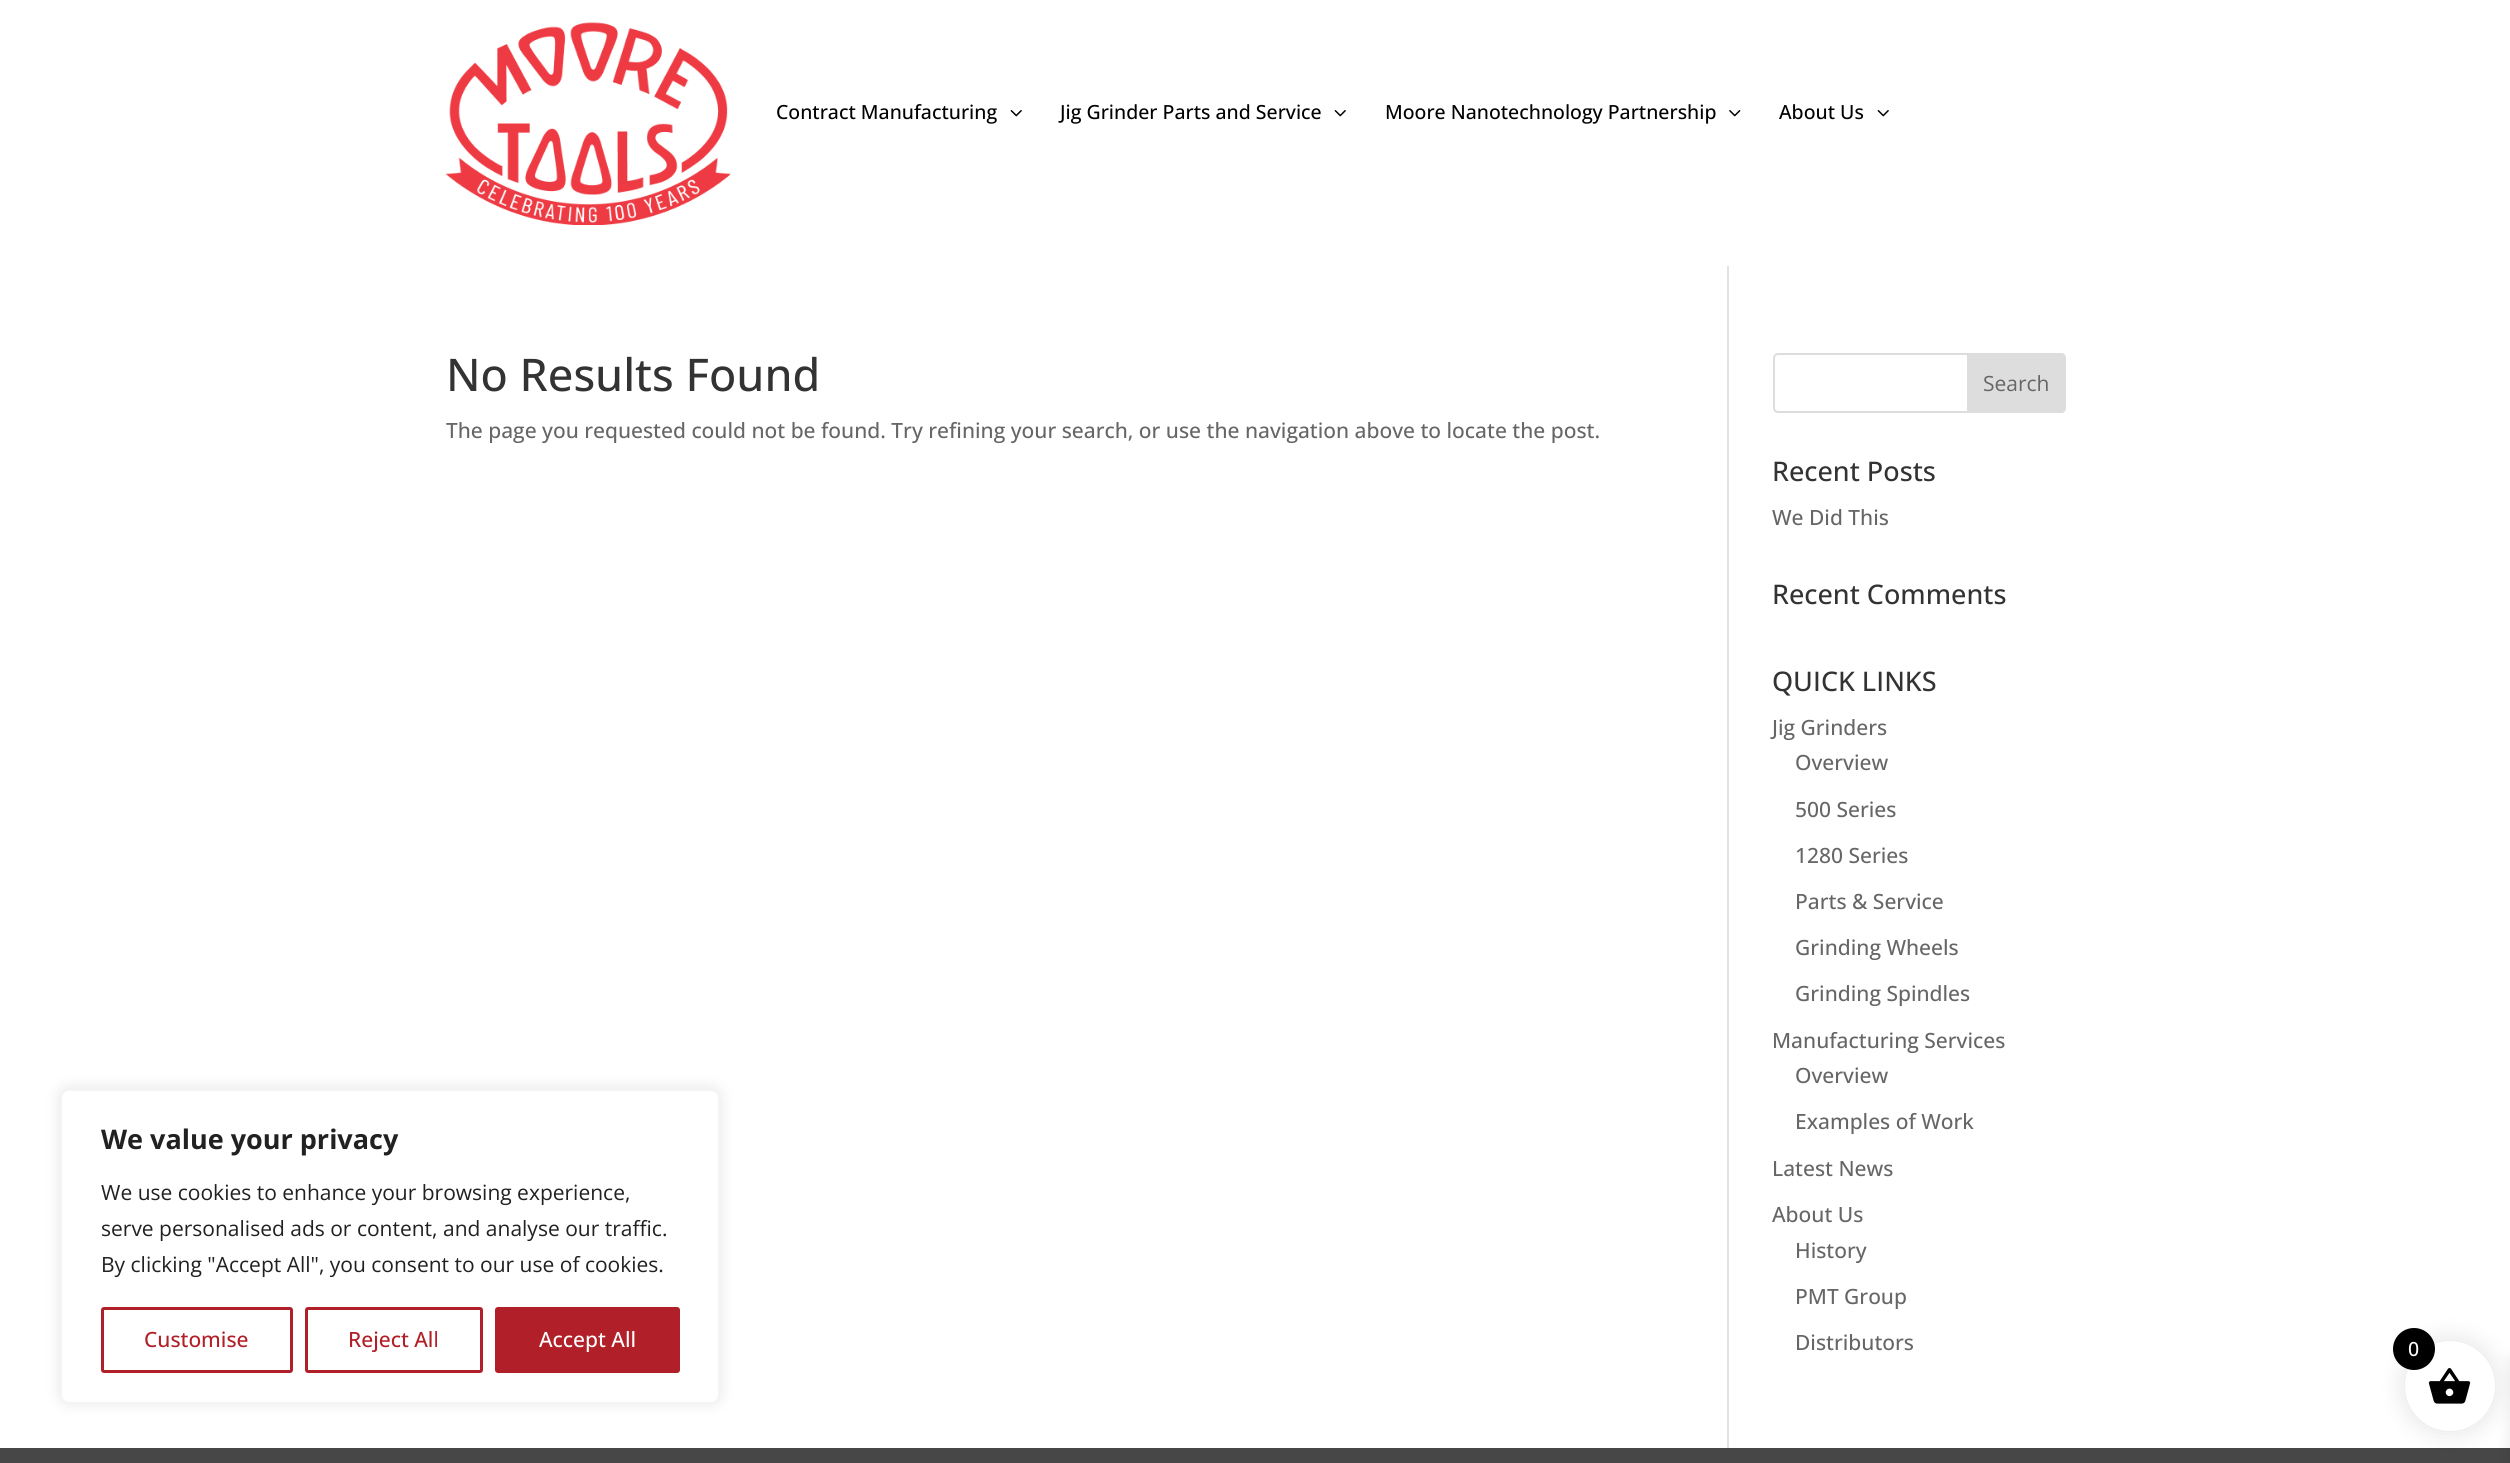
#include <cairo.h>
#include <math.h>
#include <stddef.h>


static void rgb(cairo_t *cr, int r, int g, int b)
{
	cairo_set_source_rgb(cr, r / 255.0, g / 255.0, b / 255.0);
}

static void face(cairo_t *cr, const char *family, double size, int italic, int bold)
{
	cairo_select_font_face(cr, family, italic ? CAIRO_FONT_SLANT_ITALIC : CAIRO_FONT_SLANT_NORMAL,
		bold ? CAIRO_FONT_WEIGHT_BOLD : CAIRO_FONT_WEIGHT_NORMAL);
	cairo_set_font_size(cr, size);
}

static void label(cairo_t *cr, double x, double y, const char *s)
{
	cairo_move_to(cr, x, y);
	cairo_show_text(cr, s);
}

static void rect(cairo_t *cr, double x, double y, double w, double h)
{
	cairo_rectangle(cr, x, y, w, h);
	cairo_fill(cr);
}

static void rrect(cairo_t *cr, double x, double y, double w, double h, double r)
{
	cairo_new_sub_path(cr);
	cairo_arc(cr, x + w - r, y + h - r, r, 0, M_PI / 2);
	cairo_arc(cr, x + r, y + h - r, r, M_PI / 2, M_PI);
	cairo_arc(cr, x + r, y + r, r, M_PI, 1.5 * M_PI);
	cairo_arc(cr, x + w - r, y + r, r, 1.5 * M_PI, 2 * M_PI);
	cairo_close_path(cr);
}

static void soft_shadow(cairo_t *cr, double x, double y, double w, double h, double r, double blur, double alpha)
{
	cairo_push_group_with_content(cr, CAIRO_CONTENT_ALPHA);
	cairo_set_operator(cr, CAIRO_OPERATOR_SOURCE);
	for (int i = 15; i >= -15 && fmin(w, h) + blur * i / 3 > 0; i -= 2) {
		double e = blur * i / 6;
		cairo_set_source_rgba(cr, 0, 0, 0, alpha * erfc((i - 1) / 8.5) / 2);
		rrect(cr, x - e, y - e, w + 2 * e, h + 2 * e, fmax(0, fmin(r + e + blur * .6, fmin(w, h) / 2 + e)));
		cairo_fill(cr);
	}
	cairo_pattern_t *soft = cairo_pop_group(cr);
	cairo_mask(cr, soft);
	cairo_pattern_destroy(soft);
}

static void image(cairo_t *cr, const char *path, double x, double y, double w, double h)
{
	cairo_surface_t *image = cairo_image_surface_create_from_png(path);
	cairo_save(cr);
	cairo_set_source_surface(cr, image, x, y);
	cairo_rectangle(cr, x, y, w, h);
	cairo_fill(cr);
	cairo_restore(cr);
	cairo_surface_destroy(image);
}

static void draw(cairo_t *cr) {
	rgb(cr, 255, 255, 255);
	cairo_paint(cr);
	rgb(cr, 172, 171, 171);
	soft_shadow(cr, 60, 1088, 660, 315, 9, 7.5, 0.3);
	rgb(cr, 255, 255, 255);
	rrect(cr, 61, 1090, 658, 313, 8);
	cairo_fill_preserve(cr);
	rgb(cr, 244, 244, 244);
	cairo_stroke(cr);
	face(cr, "Open Sans", 27, 0, 1);
	rgb(cr, 33, 33, 33);
	label(cr, 101, 1149, "We value your privacy");
	face(cr, "Open Sans", 21, 0, 0);
	label(cr, 101, 1200, "We use cookies to enhance your browsing experience,");
	label(cr, 101, 1236, "serve personalised ads or content, and analyse our traffic.");
	label(cr, 101, 1272, "By clicking \"Accept All\", you consent to our use of cookies.");
	rrect(cr, 102.5, 1308.5, 189, 63, 1.5);
	rgb(cr, 177, 32, 40);
	cairo_set_line_width(cr, 3);
	cairo_stroke(cr);
	face(cr, "Open Sans Medium", 21, 0, 0);
	label(cr, 144, 1347, "Customise");
	rrect(cr, 306.5, 1308.5, 175, 63, 1.5);
	cairo_stroke(cr);
	label(cr, 348, 1347, "Reject All");
	rrect(cr, 496.5, 1308.5, 182, 63, 1.5);
	cairo_fill_preserve(cr);
	cairo_stroke(cr);
	rgb(cr, 255, 255, 255);
	label(cr, 539, 1347, "Accept All");
	image(cr, "image0.png", 445, 22, 286, 203);
	face(cr, "Open Sans Medium", 19.5, 0, 0);
	rgb(cr, 0, 0, 0);
	label(cr, 776, 119, "Contract Manufacturing");
	image(cr, "image1.png", 1010, 110, 12, 7);
	label(cr, 1060, 119, "Jig Grinder Parts and Service");
	image(cr, "image1.png", 1334, 110, 12, 7);
	label(cr, 1385, 119, "Moore Nanotechnology Partnership");
	image(cr, "image2.png", 1729, 110, 12, 7);
	label(cr, 1779, 119, "About Us");
	image(cr, "image1.png", 1877, 110, 12, 7);
	rgb(cr, 226, 226, 226);
	rect(cr, 1727, 266, 2, 1182);
	face(cr, "Open Sans Medium", 45, 0, 0);
	rgb(cr, 51, 51, 51);
	label(cr, 446, 391, "No Results Found");
	face(cr, "Open Sans Medium", 21, 0, 0);
	rgb(cr, 102, 102, 102);
	label(cr, 446, 438, "The page you requested could not be found. Try refining your search, or use the navigation above to locate the post.");
	rrect(cr, 1774, 354, 291, 58, 4);
	rgb(cr, 221, 221, 221);
	cairo_set_line_width(cr, 2);
	cairo_stroke(cr);
	cairo_new_path(cr);
	cairo_move_to(cr, 1968, 354);
	cairo_line_to(cr, 2061, 354);
	cairo_curve_to(cr, 2063, 354, 2065, 356, 2065, 358);
	cairo_line_to(cr, 2065, 408);
	cairo_curve_to(cr, 2065, 410, 2063, 412, 2061, 412);
	cairo_line_to(cr, 1968, 412);
	cairo_close_path(cr);
	cairo_fill_preserve(cr);
	cairo_stroke(cr);
	face(cr, "Open Sans", 21, 0, 0);
	rgb(cr, 102, 102, 102);
	label(cr, 1983, 391, "Search");
	face(cr, "Open Sans Medium", 27, 0, 0);
	rgb(cr, 51, 51, 51);
	label(cr, 1772, 481, "Recent Posts");
	face(cr, "Open Sans Medium", 21, 0, 0);
	rgb(cr, 102, 102, 102);
	label(cr, 1772, 525, "We Did This");
	face(cr, "Open Sans Medium", 27, 0, 0);
	rgb(cr, 51, 51, 51);
	label(cr, 1772, 604, "Recent Comments");
	label(cr, 1772, 691, "QUICK LINKS");
	face(cr, "Open Sans Medium", 21, 0, 0);
	rgb(cr, 102, 102, 102);
	label(cr, 1772, 735, "Jig Grinders");
	label(cr, 1795, 770, "Overview");
	label(cr, 1795, 817, "500 Series");
	label(cr, 1795, 863, "1280 Series");
	label(cr, 1795, 909, "Parts & Service");
	label(cr, 1795, 955, "Grinding Wheels");
	label(cr, 1795, 1001, "Grinding Spindles");
	label(cr, 1772, 1048, "Manufacturing Services");
	label(cr, 1795, 1083, "Overview");
	label(cr, 1795, 1129, "Examples of Work");
	label(cr, 1772, 1176, "Latest News");
	label(cr, 1772, 1222, "About Us");
	label(cr, 1795, 1258, "History");
	label(cr, 1795, 1304, "PMT Group");
	label(cr, 1795, 1350, "Distributors");
	rgb(cr, 71, 71, 71);
	rect(cr, 0, 1448, 2510, 15);
	rgb(cr, 0, 0, 0);
	soft_shadow(cr, 2402, 1338, 96, 96, 48, 11, 0.1);
	soft_shadow(cr, 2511, 1361, 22, 102, 0, 7.5, 0.1);
	rgb(cr, 255, 255, 255);
	cairo_arc(cr, 2450, 1386, 45, 0, 2 * M_PI);
	cairo_fill(cr);
	image(cr, "image3.png", 2428, 1368, 43, 36);
	rgb(cr, 0, 0, 0);
	cairo_arc(cr, 2414, 1349, 21, 0, 2 * M_PI);
	cairo_fill(cr);
	face(cr, "Open Sans Medium", 19.5, 0, 0);
	rgb(cr, 255, 255, 255);
	label(cr, 2408, 1356, "0");
}

int main(void) {
	cairo_surface_t *surface = cairo_image_surface_create(CAIRO_FORMAT_RGB24, 2510, 1463);
	cairo_t *cr = cairo_create(surface);
	cairo_font_options_t *options = cairo_font_options_create();
	cairo_font_options_set_hint_metrics(options, CAIRO_HINT_METRICS_OFF);
	cairo_font_options_set_hint_style(options, CAIRO_HINT_STYLE_NONE);
	cairo_set_font_options(cr, options);
	cairo_set_miter_limit(cr, 4);
	draw(cr);
	cairo_surface_write_to_png(surface, "render.png");
	cairo_font_options_destroy(options);
	cairo_destroy(cr);
	cairo_surface_destroy(surface);
	return 0;
}
